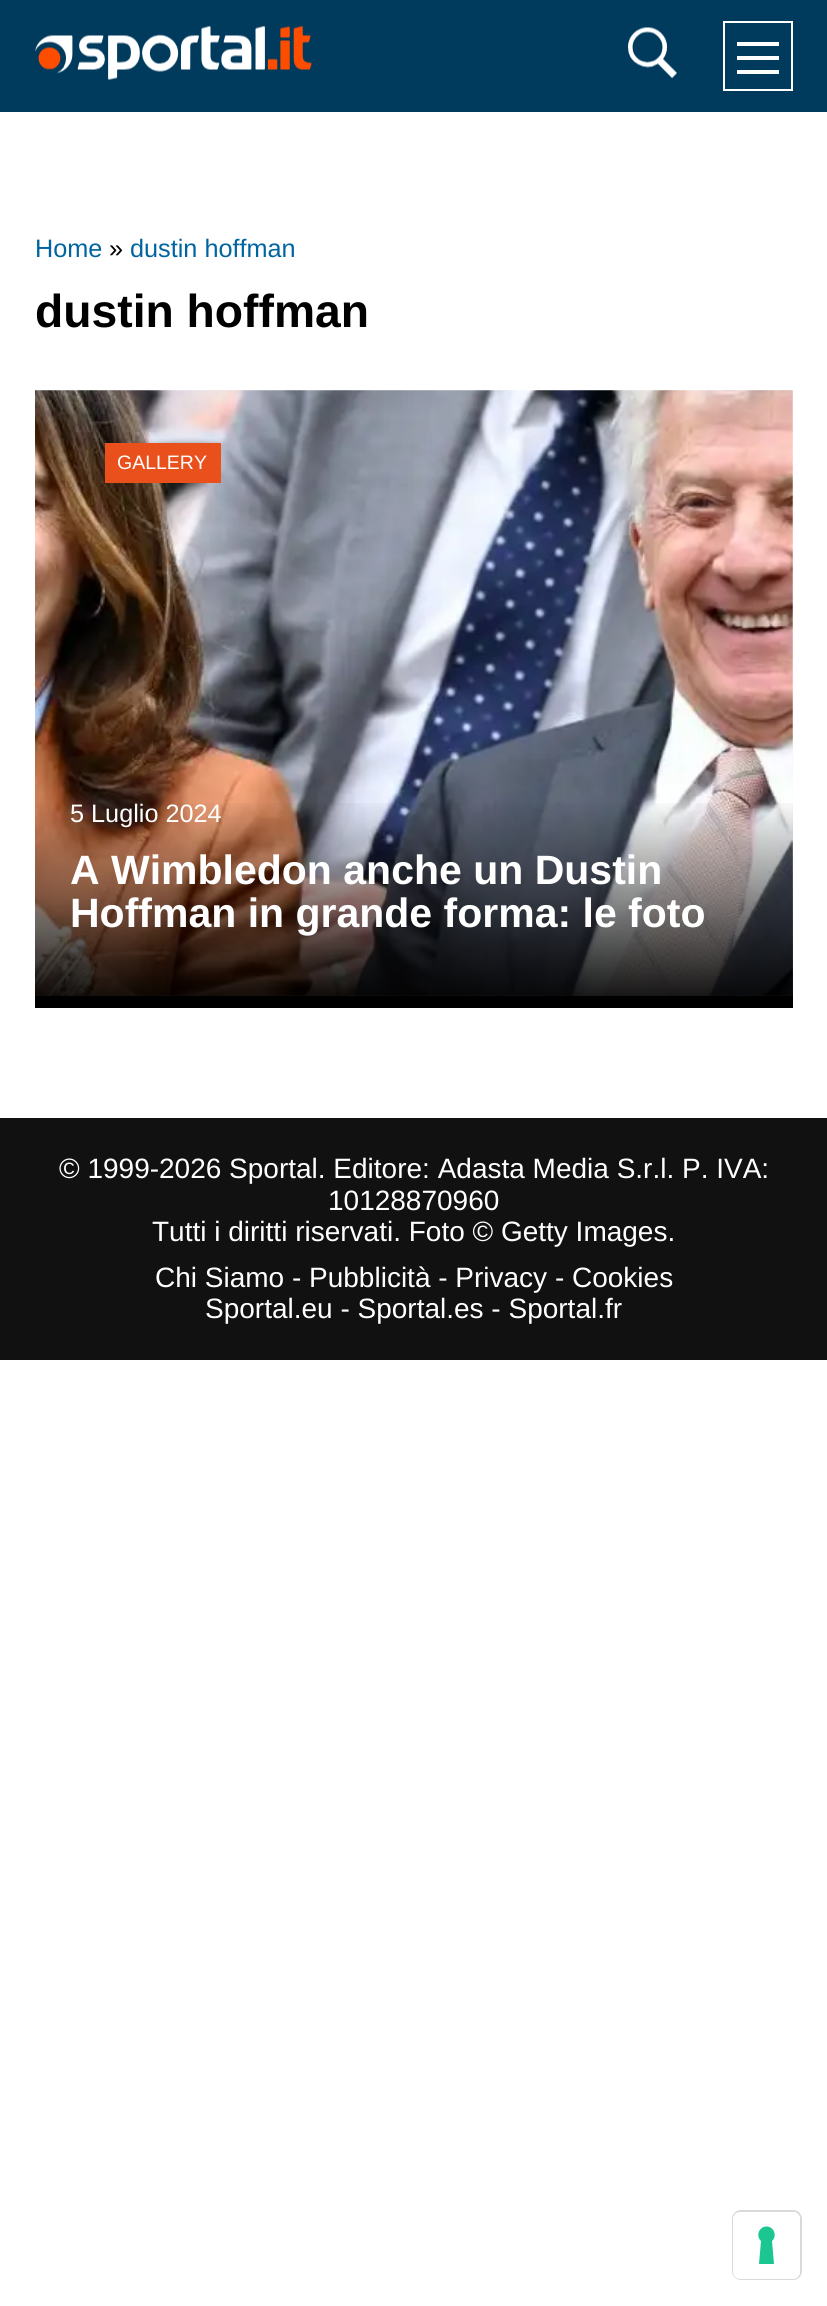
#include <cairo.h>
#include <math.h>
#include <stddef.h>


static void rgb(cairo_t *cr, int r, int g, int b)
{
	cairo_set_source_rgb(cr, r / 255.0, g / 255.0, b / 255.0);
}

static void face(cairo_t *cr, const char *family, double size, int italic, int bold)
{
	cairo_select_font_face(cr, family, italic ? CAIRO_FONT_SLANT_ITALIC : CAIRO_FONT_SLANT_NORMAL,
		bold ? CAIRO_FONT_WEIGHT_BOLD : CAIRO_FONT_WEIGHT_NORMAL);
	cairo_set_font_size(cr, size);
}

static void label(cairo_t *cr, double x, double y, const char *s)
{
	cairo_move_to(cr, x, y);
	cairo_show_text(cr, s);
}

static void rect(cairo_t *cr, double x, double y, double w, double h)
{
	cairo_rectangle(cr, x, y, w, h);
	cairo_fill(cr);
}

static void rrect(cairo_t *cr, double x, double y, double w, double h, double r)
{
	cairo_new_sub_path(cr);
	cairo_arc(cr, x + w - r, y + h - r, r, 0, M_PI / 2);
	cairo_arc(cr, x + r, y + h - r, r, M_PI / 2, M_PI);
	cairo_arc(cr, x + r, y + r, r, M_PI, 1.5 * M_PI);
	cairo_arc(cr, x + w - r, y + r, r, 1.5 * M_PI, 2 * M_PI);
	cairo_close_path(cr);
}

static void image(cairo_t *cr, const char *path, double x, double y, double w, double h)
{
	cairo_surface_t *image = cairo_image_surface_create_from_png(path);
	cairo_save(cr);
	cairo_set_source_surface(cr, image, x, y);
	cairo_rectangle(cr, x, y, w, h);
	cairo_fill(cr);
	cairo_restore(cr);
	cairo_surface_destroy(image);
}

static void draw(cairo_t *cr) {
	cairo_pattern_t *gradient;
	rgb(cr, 255, 255, 255);
	cairo_paint(cr);
	rgb(cr, 0, 58, 93);
	rect(cr, 0, 0, 827, 112);
	image(cr, "image0.png", 35, 25, 277, 55);
	image(cr, "image1.png", 628, 27, 49, 52);
	cairo_rectangle(cr, 724, 22, 68, 68);
	rgb(cr, 255, 255, 255);
	cairo_stroke(cr);
	rect(cr, 737, 42, 42, 4);
	rect(cr, 737, 56, 42, 4);
	rect(cr, 737, 70, 42, 4);
	face(cr, "Liberation Sans", 25.25, 0, 0);
	rgb(cr, 0, 100, 160);
	label(cr, 35, 257, "Home");
	rgb(cr, 0, 0, 0);
	label(cr, 109, 257, "»");
	rgb(cr, 0, 100, 160);
	label(cr, 130, 257, "dustin hoffman");
	face(cr, "Liberation Sans", 46.25, 0, 1);
	rgb(cr, 0, 0, 0);
	label(cr, 35, 327, "dustin hoffman");
	rect(cr, 35, 996, 758, 12);
	rgb(cr, 246, 247, 248);
	rect(cr, 35, 390, 758, 606);
	image(cr, "image2.png", 35, 390, 758, 606);
	rgb(cr, 233, 80, 28);
	rect(cr, 105, 443, 116, 40);
	face(cr, "Liberation Sans", 19.5, 0, 0);
	rgb(cr, 255, 255, 255);
	label(cr, 117, 469, "GALLERY");
	gradient = cairo_pattern_create_linear(414, 798, 414, 996);
	cairo_pattern_add_color_stop_rgba(gradient, 0, 0, 0, 0, 0);
	cairo_pattern_add_color_stop_rgba(gradient, 1, 0, 0, 0, 0.9);
	cairo_set_source(cr, gradient);
	cairo_pattern_destroy(gradient);
	rect(cr, 35, 803, 758, 193);
	face(cr, "Liberation Sans", 25.25, 0, 0);
	rgb(cr, 255, 255, 255);
	label(cr, 70, 822, "5 Luglio 2024");
	face(cr, "Liberation Sans", 41, 0, 1);
	label(cr, 70, 884, "A Wimbledon anche un Dustin");
	label(cr, 70, 927, "Hoffman in grande forma: le foto");
	rgb(cr, 17, 17, 17);
	rect(cr, 0, 1118, 827, 242);
	face(cr, "Liberation Sans", 28, 0, 0);
	rgb(cr, 255, 255, 255);
	label(cr, 59, 1178, "© 1999-2026 Sportal. Editore: Adasta Media S.r.l. P. IVA:");
	label(cr, 328, 1210, "10128870960");
	label(cr, 152, 1241, "Tutti i diritti riservati. Foto © Getty Images.");
	label(cr, 155, 1287, "Chi Siamo - Pubblicità - Privacy - Cookies");
	label(cr, 205, 1318, "Sportal.eu - Sportal.es - Sportal.fr");
	rrect(cr, 733, 2211, 68, 68, 8);
	rgb(cr, 217, 217, 217);
	cairo_stroke(cr);
	rgb(cr, 255, 255, 255);
	rrect(cr, 733, 2212, 67, 67, 7);
	cairo_fill(cr);
	rgb(cr, 28, 198, 145);
	cairo_set_fill_rule(cr, CAIRO_FILL_RULE_EVEN_ODD);
	cairo_new_path(cr);
	cairo_move_to(cr, 766.5, 2226.5);
	cairo_curve_to(cr, 774, 2226.5, 777.5, 2236, 772, 2241);
	cairo_line_to(cr, 774, 2264);
	cairo_line_to(cr, 759, 2264);
	cairo_line_to(cr, 761, 2241);
	cairo_curve_to(cr, 755.5, 2236, 759, 2226.5, 766.5, 2226.5);
	cairo_close_path(cr);
	cairo_fill(cr);
}

int main(void) {
	cairo_surface_t *surface = cairo_image_surface_create(CAIRO_FORMAT_RGB24, 827, 2306);
	cairo_t *cr = cairo_create(surface);
	cairo_font_options_t *options = cairo_font_options_create();
	cairo_font_options_set_hint_metrics(options, CAIRO_HINT_METRICS_OFF);
	cairo_font_options_set_hint_style(options, CAIRO_HINT_STYLE_NONE);
	cairo_set_font_options(cr, options);
	cairo_set_miter_limit(cr, 4);
	draw(cr);
	cairo_surface_write_to_png(surface, "render.png");
	cairo_font_options_destroy(options);
	cairo_destroy(cr);
	cairo_surface_destroy(surface);
	return 0;
}
